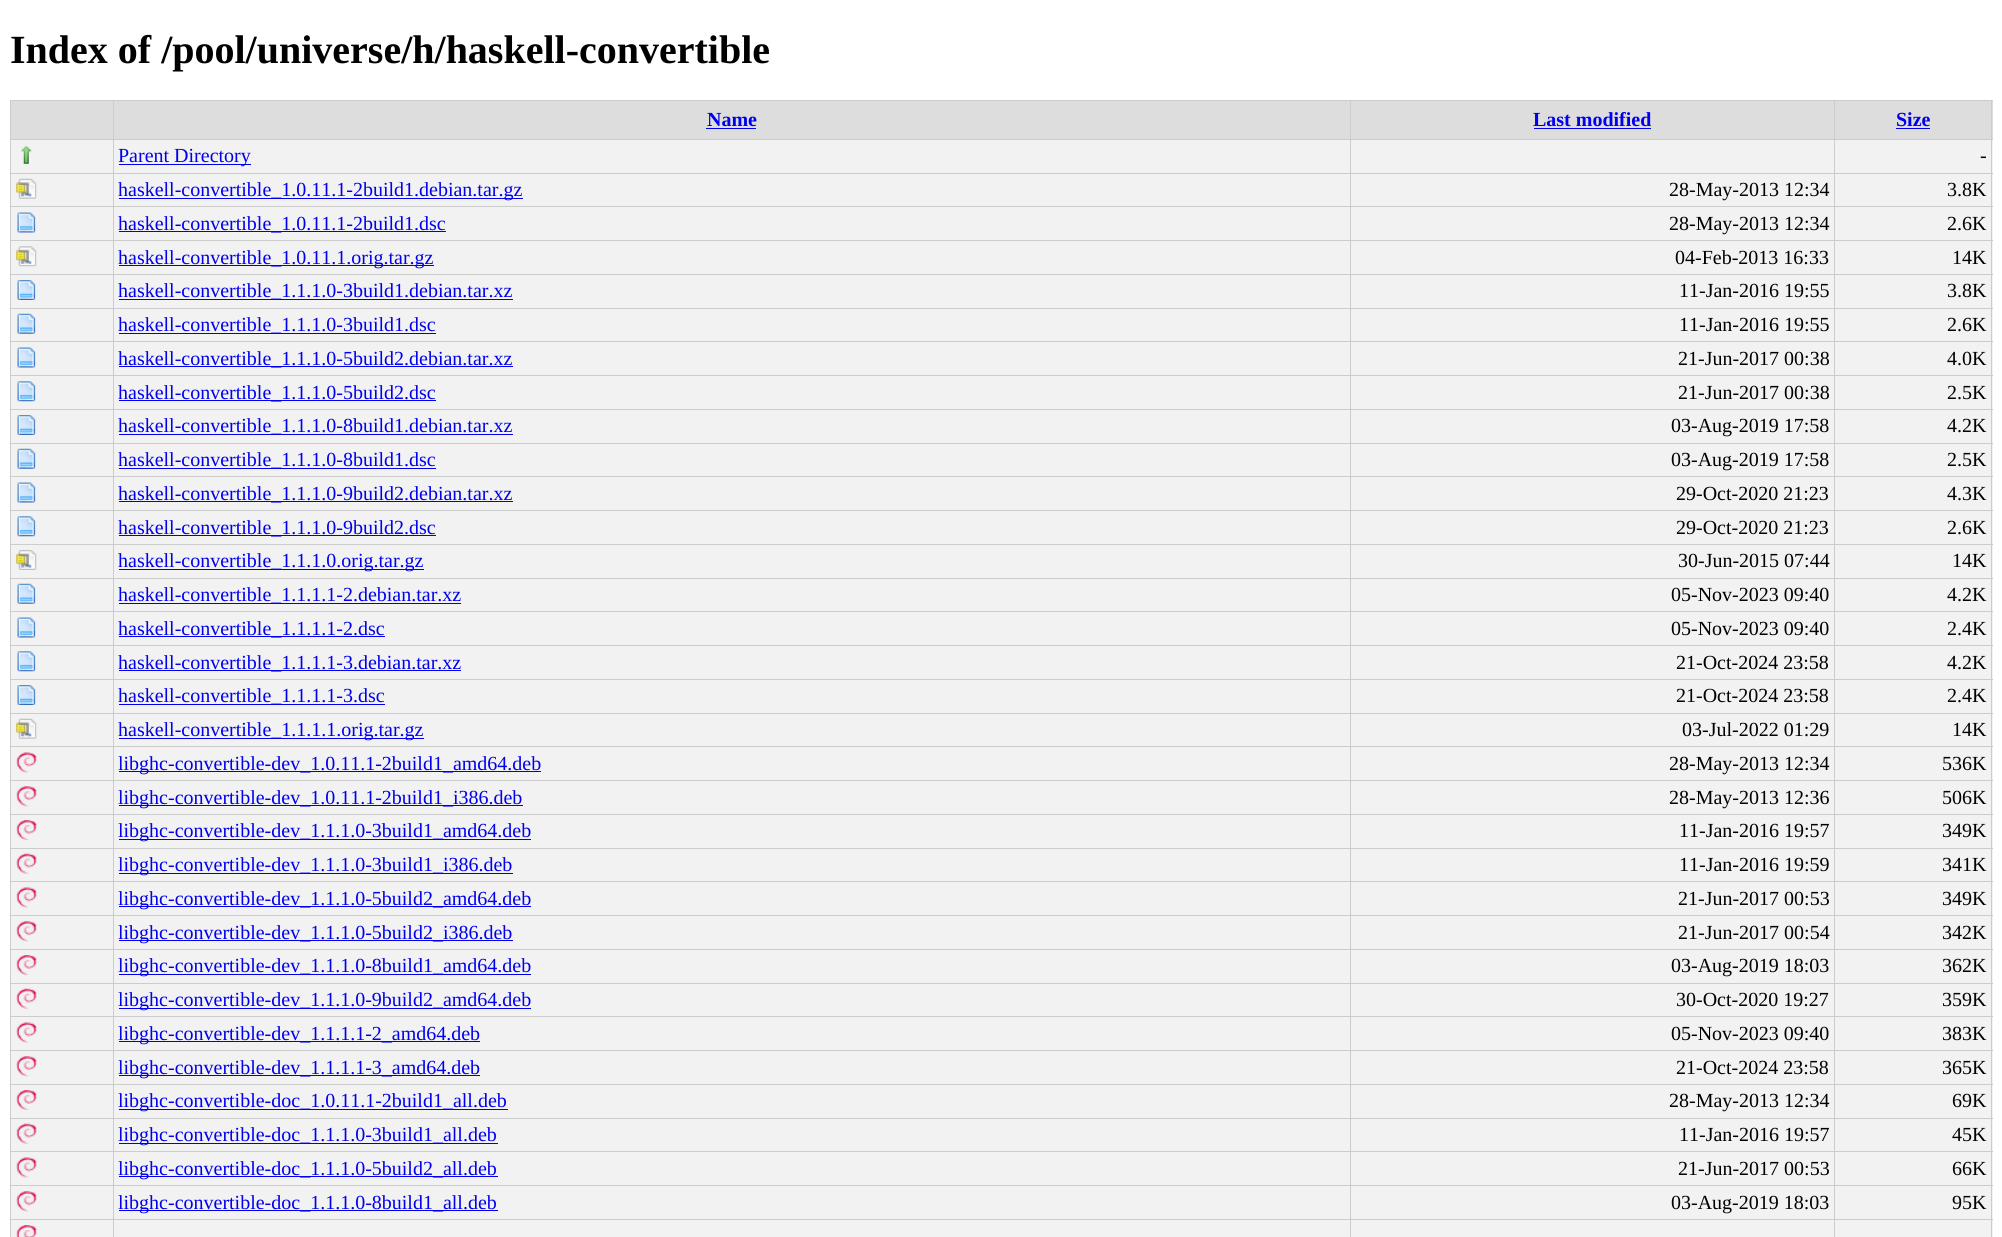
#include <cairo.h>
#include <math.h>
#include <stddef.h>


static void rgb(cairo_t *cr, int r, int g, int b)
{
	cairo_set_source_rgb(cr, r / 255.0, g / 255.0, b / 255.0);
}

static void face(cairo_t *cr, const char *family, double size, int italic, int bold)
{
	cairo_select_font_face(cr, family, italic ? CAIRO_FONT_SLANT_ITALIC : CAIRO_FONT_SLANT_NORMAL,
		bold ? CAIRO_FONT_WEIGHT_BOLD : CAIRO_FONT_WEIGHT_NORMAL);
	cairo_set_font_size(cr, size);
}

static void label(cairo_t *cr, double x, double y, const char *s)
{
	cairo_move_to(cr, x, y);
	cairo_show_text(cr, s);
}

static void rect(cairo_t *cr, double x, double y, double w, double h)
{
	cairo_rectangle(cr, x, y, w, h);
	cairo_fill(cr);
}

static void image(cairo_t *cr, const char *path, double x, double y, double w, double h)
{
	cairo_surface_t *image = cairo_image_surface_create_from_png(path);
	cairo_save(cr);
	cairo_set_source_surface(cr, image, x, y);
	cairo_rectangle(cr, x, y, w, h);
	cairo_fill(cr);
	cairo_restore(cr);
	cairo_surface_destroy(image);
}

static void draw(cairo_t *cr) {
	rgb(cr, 255, 255, 255);
	cairo_paint(cr);
	face(cr, "Liberation Serif", 40, 0, 1);
	rgb(cr, 0, 0, 0);
	label(cr, 10, 63, "Index of /pool/universe/h/haskell-convertible");
	rgb(cr, 221, 221, 221);
	rect(cr, 11, 101, 102, 38);
	rgb(cr, 204, 204, 204);
	rect(cr, 1834, 100, 159, 1);
	rect(cr, 1834, 139, 159, 1);
	rgb(cr, 242, 242, 242);
	rect(cr, 11, 140, 1982, 33);
	rgb(cr, 204, 204, 204);
	rect(cr, 1834, 173, 159, 1);
	rgb(cr, 242, 242, 242);
	rect(cr, 11, 174, 1982, 32);
	rect(cr, 11, 207, 1982, 33);
	rgb(cr, 204, 204, 204);
	rect(cr, 1834, 206, 159, 1);
	rect(cr, 1834, 240, 159, 1);
	rgb(cr, 242, 242, 242);
	rect(cr, 11, 241, 1982, 33);
	rgb(cr, 204, 204, 204);
	rect(cr, 1834, 274, 159, 1);
	rgb(cr, 242, 242, 242);
	rect(cr, 11, 275, 1982, 33);
	rgb(cr, 204, 204, 204);
	rect(cr, 1834, 308, 159, 1);
	rgb(cr, 242, 242, 242);
	rect(cr, 11, 309, 1982, 32);
	rect(cr, 11, 342, 1982, 33);
	rgb(cr, 204, 204, 204);
	rect(cr, 1834, 341, 159, 1);
	rect(cr, 1834, 375, 159, 1);
	rgb(cr, 242, 242, 242);
	rect(cr, 11, 376, 1982, 33);
	rgb(cr, 204, 204, 204);
	rect(cr, 1834, 409, 159, 1);
	rgb(cr, 242, 242, 242);
	rect(cr, 11, 410, 1982, 33);
	rgb(cr, 204, 204, 204);
	rect(cr, 1834, 443, 159, 1);
	rgb(cr, 242, 242, 242);
	rect(cr, 11, 444, 1982, 32);
	rect(cr, 11, 477, 1982, 33);
	rgb(cr, 204, 204, 204);
	rect(cr, 1834, 476, 159, 1);
	rect(cr, 1834, 510, 159, 1);
	rgb(cr, 242, 242, 242);
	rect(cr, 11, 511, 1982, 33);
	rgb(cr, 204, 204, 204);
	rect(cr, 1834, 544, 159, 1);
	rgb(cr, 242, 242, 242);
	rect(cr, 11, 545, 1982, 33);
	rgb(cr, 204, 204, 204);
	rect(cr, 1834, 578, 159, 1);
	rgb(cr, 242, 242, 242);
	rect(cr, 11, 579, 1982, 32);
	rect(cr, 11, 612, 1982, 33);
	rgb(cr, 204, 204, 204);
	rect(cr, 1834, 611, 159, 1);
	rect(cr, 1834, 645, 159, 1);
	rgb(cr, 242, 242, 242);
	rect(cr, 11, 646, 1982, 33);
	rgb(cr, 204, 204, 204);
	rect(cr, 1834, 679, 159, 1);
	rgb(cr, 242, 242, 242);
	rect(cr, 11, 680, 1982, 33);
	rgb(cr, 204, 204, 204);
	rect(cr, 1834, 713, 159, 1);
	rgb(cr, 242, 242, 242);
	rect(cr, 11, 714, 1982, 32);
	rect(cr, 11, 747, 1982, 33);
	rgb(cr, 204, 204, 204);
	rect(cr, 1834, 746, 159, 1);
	rect(cr, 1834, 780, 159, 1);
	rgb(cr, 242, 242, 242);
	rect(cr, 11, 781, 1982, 33);
	rgb(cr, 204, 204, 204);
	rect(cr, 1834, 814, 159, 1);
	rgb(cr, 242, 242, 242);
	rect(cr, 11, 815, 1982, 33);
	rgb(cr, 204, 204, 204);
	rect(cr, 1834, 848, 159, 1);
	rgb(cr, 242, 242, 242);
	rect(cr, 11, 849, 1982, 32);
	rect(cr, 11, 882, 1982, 33);
	rgb(cr, 204, 204, 204);
	rect(cr, 1834, 881, 159, 1);
	rect(cr, 1834, 915, 159, 1);
	rgb(cr, 242, 242, 242);
	rect(cr, 11, 916, 1982, 33);
	rgb(cr, 204, 204, 204);
	rect(cr, 1834, 949, 159, 1);
	rgb(cr, 242, 242, 242);
	rect(cr, 11, 950, 1982, 33);
	rgb(cr, 204, 204, 204);
	rect(cr, 1834, 983, 159, 1);
	rgb(cr, 242, 242, 242);
	rect(cr, 11, 984, 1982, 32);
	rect(cr, 11, 1017, 1982, 33);
	rgb(cr, 204, 204, 204);
	rect(cr, 1834, 1016, 159, 1);
	rect(cr, 1834, 1050, 159, 1);
	rgb(cr, 242, 242, 242);
	rect(cr, 11, 1051, 1982, 33);
	rgb(cr, 204, 204, 204);
	rect(cr, 1834, 1084, 159, 1);
	rgb(cr, 242, 242, 242);
	rect(cr, 11, 1085, 1982, 33);
	rgb(cr, 204, 204, 204);
	rect(cr, 1834, 1118, 159, 1);
	rgb(cr, 242, 242, 242);
	rect(cr, 11, 1119, 1982, 32);
	rect(cr, 11, 1152, 1982, 33);
	rgb(cr, 204, 204, 204);
	rect(cr, 1834, 1151, 159, 1);
	rect(cr, 1834, 1185, 159, 1);
	rgb(cr, 242, 242, 242);
	rect(cr, 11, 1186, 1982, 33);
	rgb(cr, 204, 204, 204);
	rect(cr, 1834, 1219, 159, 1);
	rgb(cr, 242, 242, 242);
	rect(cr, 11, 1220, 1982, 17);
	rgb(cr, 204, 204, 204);
	rect(cr, 1834, 1219, 1, 18);
	rect(cr, 1350, 1219, 485, 1);
	rect(cr, 1834, 1185, 1, 35);
	rect(cr, 1350, 1185, 485, 1);
	rect(cr, 1834, 1151, 1, 35);
	rect(cr, 1350, 1151, 485, 1);
	rect(cr, 1834, 1118, 1, 35);
	rect(cr, 1350, 1118, 485, 1);
	rect(cr, 1834, 1084, 1, 35);
	rect(cr, 1350, 1084, 485, 1);
	rect(cr, 1834, 1050, 1, 35);
	rect(cr, 1350, 1050, 485, 1);
	rect(cr, 1834, 1016, 1, 35);
	rect(cr, 1350, 1016, 485, 1);
	rect(cr, 1834, 983, 1, 35);
	rect(cr, 1350, 983, 485, 1);
	rect(cr, 1834, 949, 1, 35);
	rect(cr, 1350, 949, 485, 1);
	rect(cr, 1834, 915, 1, 35);
	rect(cr, 1350, 915, 485, 1);
	rect(cr, 1834, 881, 1, 35);
	rect(cr, 1350, 881, 485, 1);
	rect(cr, 1834, 848, 1, 35);
	rect(cr, 1350, 848, 485, 1);
	rect(cr, 1834, 814, 1, 35);
	rect(cr, 1350, 814, 485, 1);
	rect(cr, 1834, 780, 1, 35);
	rect(cr, 1350, 780, 485, 1);
	rect(cr, 1834, 746, 1, 35);
	rect(cr, 1350, 746, 485, 1);
	rect(cr, 1834, 713, 1, 35);
	rect(cr, 1350, 713, 485, 1);
	rect(cr, 1834, 679, 1, 35);
	rect(cr, 1350, 679, 485, 1);
	rect(cr, 1834, 645, 1, 35);
	rect(cr, 1350, 645, 485, 1);
	rect(cr, 1834, 611, 1, 35);
	rect(cr, 1350, 611, 485, 1);
	rect(cr, 1834, 578, 1, 35);
	rect(cr, 1350, 578, 485, 1);
	rect(cr, 1834, 544, 1, 35);
	rect(cr, 1350, 544, 485, 1);
	rect(cr, 1834, 510, 1, 35);
	rect(cr, 1350, 510, 485, 1);
	rect(cr, 1834, 476, 1, 35);
	rect(cr, 1350, 476, 485, 1);
	rect(cr, 1834, 443, 1, 35);
	rect(cr, 1350, 443, 485, 1);
	rect(cr, 1834, 409, 1, 35);
	rect(cr, 1350, 409, 485, 1);
	rect(cr, 1834, 375, 1, 35);
	rect(cr, 1350, 375, 485, 1);
	rect(cr, 1834, 341, 1, 35);
	rect(cr, 1350, 341, 485, 1);
	rect(cr, 1834, 308, 1, 35);
	rect(cr, 1350, 308, 485, 1);
	rect(cr, 1834, 274, 1, 35);
	rect(cr, 1350, 274, 485, 1);
	rect(cr, 1834, 240, 1, 35);
	rect(cr, 1350, 240, 485, 1);
	rect(cr, 1834, 206, 1, 35);
	rect(cr, 1350, 206, 485, 1);
	rect(cr, 1834, 173, 1, 35);
	rect(cr, 1350, 173, 485, 1);
	rect(cr, 1834, 139, 1, 35);
	rect(cr, 1350, 139, 485, 1);
	rect(cr, 1834, 100, 1, 40);
	rect(cr, 1350, 100, 485, 1);
	rect(cr, 1350, 1219, 1, 18);
	rect(cr, 113, 1219, 1238, 1);
	rect(cr, 1350, 1185, 1, 35);
	rect(cr, 113, 1185, 1238, 1);
	rect(cr, 1350, 1151, 1, 35);
	rect(cr, 113, 1151, 1238, 1);
	rect(cr, 1350, 1118, 1, 35);
	rect(cr, 113, 1118, 1238, 1);
	rect(cr, 1350, 1084, 1, 35);
	rect(cr, 113, 1084, 1238, 1);
	rect(cr, 1350, 1050, 1, 35);
	rect(cr, 113, 1050, 1238, 1);
	rect(cr, 1350, 1016, 1, 35);
	rect(cr, 113, 1016, 1238, 1);
	rect(cr, 1350, 983, 1, 35);
	rect(cr, 113, 983, 1238, 1);
	rect(cr, 1350, 949, 1, 35);
	rect(cr, 113, 949, 1238, 1);
	rect(cr, 1350, 915, 1, 35);
	rect(cr, 113, 915, 1238, 1);
	rect(cr, 1350, 881, 1, 35);
	rect(cr, 113, 881, 1238, 1);
	rect(cr, 1350, 848, 1, 35);
	rect(cr, 113, 848, 1238, 1);
	rect(cr, 1350, 814, 1, 35);
	rect(cr, 113, 814, 1238, 1);
	rect(cr, 1350, 780, 1, 35);
	rect(cr, 113, 780, 1238, 1);
	rect(cr, 1350, 746, 1, 35);
	rect(cr, 113, 746, 1238, 1);
	rect(cr, 1350, 713, 1, 35);
	rect(cr, 113, 713, 1238, 1);
	rect(cr, 1350, 679, 1, 35);
	rect(cr, 113, 679, 1238, 1);
	rect(cr, 1350, 645, 1, 35);
	rect(cr, 113, 645, 1238, 1);
	rect(cr, 1350, 611, 1, 35);
	rect(cr, 113, 611, 1238, 1);
	rect(cr, 1350, 578, 1, 35);
	rect(cr, 113, 578, 1238, 1);
	rect(cr, 1350, 544, 1, 35);
	rect(cr, 113, 544, 1238, 1);
	rect(cr, 1350, 510, 1, 35);
	rect(cr, 113, 510, 1238, 1);
	rect(cr, 1350, 476, 1, 35);
	rect(cr, 113, 476, 1238, 1);
	rect(cr, 1350, 443, 1, 35);
	rect(cr, 113, 443, 1238, 1);
	rect(cr, 1350, 409, 1, 35);
	rect(cr, 113, 409, 1238, 1);
	rect(cr, 1350, 375, 1, 35);
	rect(cr, 113, 375, 1238, 1);
	rect(cr, 1350, 341, 1, 35);
	rect(cr, 113, 341, 1238, 1);
	rect(cr, 1350, 308, 1, 35);
	rect(cr, 113, 308, 1238, 1);
	rect(cr, 1350, 274, 1, 35);
	rect(cr, 113, 274, 1238, 1);
	rect(cr, 1350, 240, 1, 35);
	rect(cr, 113, 240, 1238, 1);
	rect(cr, 1350, 206, 1, 35);
	rect(cr, 113, 206, 1238, 1);
	rect(cr, 1350, 173, 1, 35);
	rect(cr, 113, 173, 1238, 1);
	rect(cr, 1350, 139, 1, 35);
	rect(cr, 113, 139, 1238, 1);
	rect(cr, 1350, 100, 1, 40);
	rect(cr, 113, 100, 1238, 1);
	rect(cr, 113, 1219, 1, 18);
	rect(cr, 10, 1219, 104, 1);
	rect(cr, 113, 1185, 1, 35);
	rect(cr, 10, 1185, 104, 1);
	rect(cr, 113, 1151, 1, 35);
	rect(cr, 10, 1151, 104, 1);
	rect(cr, 113, 1118, 1, 35);
	rect(cr, 10, 1118, 104, 1);
	rect(cr, 113, 1084, 1, 35);
	rect(cr, 10, 1084, 104, 1);
	rect(cr, 113, 1050, 1, 35);
	rect(cr, 10, 1050, 104, 1);
	rect(cr, 113, 1016, 1, 35);
	rect(cr, 10, 1016, 104, 1);
	rect(cr, 113, 983, 1, 35);
	rect(cr, 10, 983, 104, 1);
	rect(cr, 113, 949, 1, 35);
	rect(cr, 10, 949, 104, 1);
	rect(cr, 113, 915, 1, 35);
	rect(cr, 10, 915, 104, 1);
	rect(cr, 113, 881, 1, 35);
	rect(cr, 10, 881, 104, 1);
	rect(cr, 113, 848, 1, 35);
	rect(cr, 10, 848, 104, 1);
	rect(cr, 113, 814, 1, 35);
	rect(cr, 10, 814, 104, 1);
	rect(cr, 113, 780, 1, 35);
	rect(cr, 10, 780, 104, 1);
	rect(cr, 113, 746, 1, 35);
	rect(cr, 10, 746, 104, 1);
	rect(cr, 113, 713, 1, 35);
	rect(cr, 10, 713, 104, 1);
	rect(cr, 113, 679, 1, 35);
	rect(cr, 10, 679, 104, 1);
	rect(cr, 113, 645, 1, 35);
	rect(cr, 10, 645, 104, 1);
	rect(cr, 113, 611, 1, 35);
	rect(cr, 10, 611, 104, 1);
	rect(cr, 113, 578, 1, 35);
	rect(cr, 10, 578, 104, 1);
	rect(cr, 113, 544, 1, 35);
	rect(cr, 10, 544, 104, 1);
	rect(cr, 113, 510, 1, 35);
	rect(cr, 10, 510, 104, 1);
	rect(cr, 113, 476, 1, 35);
	rect(cr, 10, 476, 104, 1);
	rect(cr, 113, 443, 1, 35);
	rect(cr, 10, 443, 104, 1);
	rect(cr, 113, 409, 1, 35);
	rect(cr, 10, 409, 104, 1);
	rect(cr, 113, 375, 1, 35);
	rect(cr, 10, 375, 104, 1);
	rect(cr, 113, 341, 1, 35);
	rect(cr, 10, 341, 104, 1);
	rect(cr, 113, 308, 1, 35);
	rect(cr, 10, 308, 104, 1);
	rect(cr, 113, 274, 1, 35);
	rect(cr, 10, 274, 104, 1);
	rect(cr, 113, 240, 1, 35);
	rect(cr, 10, 240, 104, 1);
	rect(cr, 113, 206, 1, 35);
	rect(cr, 10, 206, 104, 1);
	rect(cr, 113, 173, 1, 35);
	rect(cr, 10, 173, 104, 1);
	rect(cr, 113, 139, 1, 35);
	rect(cr, 10, 139, 104, 1);
	rect(cr, 113, 100, 1, 40);
	rect(cr, 10, 100, 104, 1);
	rect(cr, 10, 1219, 1, 18);
	rect(cr, 10, 1185, 1, 35);
	rect(cr, 10, 1151, 1, 35);
	rect(cr, 10, 1118, 1, 35);
	rect(cr, 10, 1084, 1, 35);
	rect(cr, 10, 1050, 1, 35);
	rect(cr, 10, 1016, 1, 35);
	rect(cr, 10, 983, 1, 35);
	rect(cr, 10, 949, 1, 35);
	rect(cr, 10, 915, 1, 35);
	rect(cr, 10, 881, 1, 35);
	rect(cr, 10, 848, 1, 35);
	rect(cr, 10, 814, 1, 35);
	rect(cr, 10, 780, 1, 35);
	rect(cr, 10, 746, 1, 35);
	rect(cr, 10, 713, 1, 35);
	rect(cr, 10, 679, 1, 35);
	rect(cr, 10, 645, 1, 35);
	rect(cr, 10, 611, 1, 35);
	rect(cr, 10, 578, 1, 35);
	rect(cr, 10, 544, 1, 35);
	rect(cr, 10, 510, 1, 35);
	rect(cr, 10, 476, 1, 35);
	rect(cr, 10, 443, 1, 35);
	rect(cr, 10, 409, 1, 35);
	rect(cr, 10, 375, 1, 35);
	rect(cr, 10, 341, 1, 35);
	rect(cr, 10, 308, 1, 35);
	rect(cr, 10, 274, 1, 35);
	rect(cr, 10, 240, 1, 35);
	rect(cr, 10, 206, 1, 35);
	rect(cr, 10, 173, 1, 35);
	rect(cr, 10, 139, 1, 35);
	rect(cr, 10, 100, 1, 40);
	rgb(cr, 221, 221, 221);
	rect(cr, 114, 101, 1236, 38);
	face(cr, "Liberation Serif", 20, 0, 1);
	rgb(cr, 0, 0, 238);
	label(cr, 707, 126, "Name");
	rect(cr, 706, 128, 50, 1);
	rgb(cr, 221, 221, 221);
	rect(cr, 1351, 101, 483, 38);
	rgb(cr, 0, 0, 238);
	label(cr, 1533, 126, "Last modified");
	rect(cr, 1534, 128, 117, 1);
	rgb(cr, 221, 221, 221);
	rect(cr, 1835, 101, 158, 38);
	rgb(cr, 204, 204, 204);
	rect(cr, 1991, 1219, 1, 18);
	rect(cr, 1991, 1185, 1, 35);
	rect(cr, 1991, 1151, 1, 35);
	rect(cr, 1991, 1118, 1, 35);
	rect(cr, 1991, 1084, 1, 35);
	rect(cr, 1991, 1050, 1, 35);
	rect(cr, 1991, 1016, 1, 35);
	rect(cr, 1991, 983, 1, 35);
	rect(cr, 1991, 949, 1, 35);
	rect(cr, 1991, 915, 1, 35);
	rect(cr, 1991, 881, 1, 35);
	rect(cr, 1991, 848, 1, 35);
	rect(cr, 1991, 814, 1, 35);
	rect(cr, 1991, 780, 1, 35);
	rect(cr, 1991, 746, 1, 35);
	rect(cr, 1991, 713, 1, 35);
	rect(cr, 1991, 679, 1, 35);
	rect(cr, 1991, 645, 1, 35);
	rect(cr, 1991, 611, 1, 35);
	rect(cr, 1991, 578, 1, 35);
	rect(cr, 1991, 544, 1, 35);
	rect(cr, 1991, 510, 1, 35);
	rect(cr, 1991, 476, 1, 35);
	rect(cr, 1991, 443, 1, 35);
	rect(cr, 1991, 409, 1, 35);
	rect(cr, 1991, 375, 1, 35);
	rect(cr, 1991, 341, 1, 35);
	rect(cr, 1991, 308, 1, 35);
	rect(cr, 1991, 274, 1, 35);
	rect(cr, 1991, 240, 1, 35);
	rect(cr, 1991, 206, 1, 35);
	rect(cr, 1991, 173, 1, 35);
	rect(cr, 1991, 139, 1, 35);
	rect(cr, 1991, 100, 1, 40);
	rgb(cr, 0, 0, 238);
	label(cr, 1896, 126, "Size");
	rect(cr, 1896, 128, 34, 1);
	image(cr, "image0.png", 21, 146, 11, 18);
	rect(cr, 119, 164, 132, 1);
	face(cr, "Liberation Serif", 20, 0, 0);
	label(cr, 118, 162, "Parent Directory");
	rgb(cr, 0, 0, 0);
	label(cr, 1980, 162, "-");
	image(cr, "image1.png", 16, 178, 21, 21);
	rgb(cr, 0, 0, 238);
	rect(cr, 119, 198, 404, 1);
	label(cr, 118, 196, "haskell-convertible_1.0.11.1-2build1.debian.tar.gz");
	rgb(cr, 0, 0, 0);
	label(cr, 1669, 196, "28-May-2013 12:34");
	label(cr, 1947, 196, "3.8K");
	image(cr, "image2.png", 17, 212, 19, 21);
	rgb(cr, 0, 0, 238);
	rect(cr, 119, 231, 327, 1);
	label(cr, 118, 230, "haskell-convertible_1.0.11.1-2build1.dsc");
	rgb(cr, 0, 0, 0);
	label(cr, 1669, 230, "28-May-2013 12:34");
	label(cr, 1947, 230, "2.6K");
	image(cr, "image3.png", 16, 246, 21, 21);
	rgb(cr, 0, 0, 238);
	rect(cr, 119, 265, 315, 1);
	label(cr, 118, 264, "haskell-convertible_1.0.11.1.orig.tar.gz");
	rgb(cr, 0, 0, 0);
	label(cr, 1675, 264, "04-Feb-2013 16:33");
	label(cr, 1952, 264, "14K");
	image(cr, "image4.png", 17, 280, 19, 20);
	rgb(cr, 0, 0, 238);
	rect(cr, 119, 299, 394, 1);
	label(cr, 118, 297, "haskell-convertible_1.1.1.0-3build1.debian.tar.xz");
	rgb(cr, 0, 0, 0);
	label(cr, 1679, 297, "11-Jan-2016 19:55");
	label(cr, 1947, 297, "3.8K");
	image(cr, "image5.png", 17, 313, 19, 21);
	rgb(cr, 0, 0, 238);
	rect(cr, 119, 333, 317, 1);
	label(cr, 118, 331, "haskell-convertible_1.1.1.0-3build1.dsc");
	rgb(cr, 0, 0, 0);
	label(cr, 1679, 331, "11-Jan-2016 19:55");
	label(cr, 1947, 331, "2.6K");
	image(cr, "image2.png", 17, 347, 19, 21);
	rgb(cr, 0, 0, 238);
	rect(cr, 119, 366, 394, 1);
	label(cr, 118, 365, "haskell-convertible_1.1.1.0-5build2.debian.tar.xz");
	rgb(cr, 0, 0, 0);
	label(cr, 1678, 365, "21-Jun-2017 00:38");
	label(cr, 1947, 365, "4.0K");
	image(cr, "image6.png", 17, 381, 19, 21);
	rgb(cr, 0, 0, 238);
	rect(cr, 119, 400, 317, 1);
	label(cr, 118, 399, "haskell-convertible_1.1.1.0-5build2.dsc");
	rgb(cr, 0, 0, 0);
	label(cr, 1678, 399, "21-Jun-2017 00:38");
	label(cr, 1947, 399, "2.5K");
	image(cr, "image7.png", 17, 415, 19, 20);
	rgb(cr, 0, 0, 238);
	rect(cr, 119, 434, 394, 1);
	label(cr, 118, 432, "haskell-convertible_1.1.1.0-8build1.debian.tar.xz");
	rgb(cr, 0, 0, 0);
	label(cr, 1671, 432, "03-Aug-2019 17:58");
	label(cr, 1947, 432, "4.2K");
	image(cr, "image5.png", 17, 448, 19, 21);
	rgb(cr, 0, 0, 238);
	rect(cr, 119, 468, 317, 1);
	label(cr, 118, 466, "haskell-convertible_1.1.1.0-8build1.dsc");
	rgb(cr, 0, 0, 0);
	label(cr, 1671, 466, "03-Aug-2019 17:58");
	label(cr, 1947, 466, "2.5K");
	image(cr, "image2.png", 17, 482, 19, 21);
	rgb(cr, 0, 0, 238);
	rect(cr, 119, 501, 394, 1);
	label(cr, 118, 500, "haskell-convertible_1.1.1.0-9build2.debian.tar.xz");
	rgb(cr, 0, 0, 0);
	label(cr, 1676, 500, "29-Oct-2020 21:23");
	label(cr, 1947, 500, "4.3K");
	image(cr, "image6.png", 17, 516, 19, 21);
	rgb(cr, 0, 0, 238);
	rect(cr, 119, 535, 317, 1);
	label(cr, 118, 534, "haskell-convertible_1.1.1.0-9build2.dsc");
	rgb(cr, 0, 0, 0);
	label(cr, 1676, 534, "29-Oct-2020 21:23");
	label(cr, 1947, 534, "2.6K");
	image(cr, "image8.png", 16, 550, 21, 20);
	rgb(cr, 0, 0, 238);
	rect(cr, 119, 569, 305, 1);
	label(cr, 118, 567, "haskell-convertible_1.1.1.0.orig.tar.gz");
	rgb(cr, 0, 0, 0);
	label(cr, 1678, 567, "30-Jun-2015 07:44");
	label(cr, 1952, 567, "14K");
	image(cr, "image9.png", 17, 583, 19, 21);
	rgb(cr, 0, 0, 238);
	rect(cr, 119, 603, 342, 1);
	label(cr, 118, 601, "haskell-convertible_1.1.1.1-2.debian.tar.xz");
	rgb(cr, 0, 0, 0);
	label(cr, 1671, 601, "05-Nov-2023 09:40");
	label(cr, 1947, 601, "4.2K");
	image(cr, "image2.png", 17, 617, 19, 21);
	rgb(cr, 0, 0, 238);
	rect(cr, 119, 636, 266, 1);
	label(cr, 118, 635, "haskell-convertible_1.1.1.1-2.dsc");
	rgb(cr, 0, 0, 0);
	label(cr, 1671, 635, "05-Nov-2023 09:40");
	label(cr, 1947, 635, "2.4K");
	image(cr, "image6.png", 17, 651, 19, 21);
	rgb(cr, 0, 0, 238);
	rect(cr, 119, 670, 342, 1);
	label(cr, 118, 669, "haskell-convertible_1.1.1.1-3.debian.tar.xz");
	rgb(cr, 0, 0, 0);
	label(cr, 1676, 669, "21-Oct-2024 23:58");
	label(cr, 1947, 669, "4.2K");
	image(cr, "image7.png", 17, 685, 19, 20);
	rgb(cr, 0, 0, 238);
	rect(cr, 119, 704, 266, 1);
	label(cr, 118, 702, "haskell-convertible_1.1.1.1-3.dsc");
	rgb(cr, 0, 0, 0);
	label(cr, 1676, 702, "21-Oct-2024 23:58");
	label(cr, 1947, 702, "2.4K");
	image(cr, "image1.png", 16, 718, 21, 21);
	rgb(cr, 0, 0, 238);
	rect(cr, 119, 738, 305, 1);
	label(cr, 118, 736, "haskell-convertible_1.1.1.1.orig.tar.gz");
	rgb(cr, 0, 0, 0);
	label(cr, 1682, 736, "03-Jul-2022 01:29");
	label(cr, 1952, 736, "14K");
	image(cr, "image10.png", 16, 752, 21, 21);
	rgb(cr, 0, 0, 238);
	rect(cr, 119, 771, 422, 1);
	label(cr, 118, 770, "libghc-convertible-dev_1.0.11.1-2build1_amd64.deb");
	rgb(cr, 0, 0, 0);
	label(cr, 1669, 770, "28-May-2013 12:34");
	label(cr, 1942, 770, "536K");
	image(cr, "image11.png", 16, 786, 21, 21);
	rgb(cr, 0, 0, 238);
	rect(cr, 119, 805, 404, 1);
	label(cr, 118, 804, "libghc-convertible-dev_1.0.11.1-2build1_i386.deb");
	rgb(cr, 0, 0, 0);
	label(cr, 1669, 804, "28-May-2013 12:36");
	label(cr, 1942, 804, "506K");
	image(cr, "image12.png", 16, 820, 21, 20);
	rgb(cr, 0, 0, 238);
	rect(cr, 119, 839, 412, 1);
	label(cr, 118, 837, "libghc-convertible-dev_1.1.1.0-3build1_amd64.deb");
	rgb(cr, 0, 0, 0);
	label(cr, 1679, 837, "11-Jan-2016 19:57");
	label(cr, 1942, 837, "349K");
	image(cr, "image13.png", 16, 853, 21, 21);
	rgb(cr, 0, 0, 238);
	rect(cr, 119, 873, 394, 1);
	label(cr, 118, 871, "libghc-convertible-dev_1.1.1.0-3build1_i386.deb");
	rgb(cr, 0, 0, 0);
	label(cr, 1679, 871, "11-Jan-2016 19:59");
	label(cr, 1942, 871, "341K");
	image(cr, "image10.png", 16, 887, 21, 21);
	rgb(cr, 0, 0, 238);
	rect(cr, 119, 906, 412, 1);
	label(cr, 118, 905, "libghc-convertible-dev_1.1.1.0-5build2_amd64.deb");
	rgb(cr, 0, 0, 0);
	label(cr, 1678, 905, "21-Jun-2017 00:53");
	label(cr, 1942, 905, "349K");
	image(cr, "image11.png", 16, 921, 21, 21);
	rgb(cr, 0, 0, 238);
	rect(cr, 119, 940, 394, 1);
	label(cr, 118, 939, "libghc-convertible-dev_1.1.1.0-5build2_i386.deb");
	rgb(cr, 0, 0, 0);
	label(cr, 1678, 939, "21-Jun-2017 00:54");
	label(cr, 1942, 939, "342K");
	image(cr, "image12.png", 16, 955, 21, 20);
	rgb(cr, 0, 0, 238);
	rect(cr, 119, 974, 412, 1);
	label(cr, 118, 972, "libghc-convertible-dev_1.1.1.0-8build1_amd64.deb");
	rgb(cr, 0, 0, 0);
	label(cr, 1671, 972, "03-Aug-2019 18:03");
	label(cr, 1942, 972, "362K");
	image(cr, "image13.png", 16, 988, 21, 21);
	rgb(cr, 0, 0, 238);
	rect(cr, 119, 1008, 412, 1);
	label(cr, 118, 1006, "libghc-convertible-dev_1.1.1.0-9build2_amd64.deb");
	rgb(cr, 0, 0, 0);
	label(cr, 1676, 1006, "30-Oct-2020 19:27");
	label(cr, 1942, 1006, "359K");
	image(cr, "image14.png", 16, 1022, 21, 21);
	rgb(cr, 0, 0, 238);
	rect(cr, 119, 1041, 361, 1);
	label(cr, 118, 1040, "libghc-convertible-dev_1.1.1.1-2_amd64.deb");
	rgb(cr, 0, 0, 0);
	label(cr, 1671, 1040, "05-Nov-2023 09:40");
	label(cr, 1942, 1040, "383K");
	image(cr, "image11.png", 16, 1056, 21, 21);
	rgb(cr, 0, 0, 238);
	rect(cr, 119, 1075, 361, 1);
	label(cr, 118, 1074, "libghc-convertible-dev_1.1.1.1-3_amd64.deb");
	rgb(cr, 0, 0, 0);
	label(cr, 1676, 1074, "21-Oct-2024 23:58");
	label(cr, 1942, 1074, "365K");
	image(cr, "image12.png", 16, 1090, 21, 20);
	rgb(cr, 0, 0, 238);
	rect(cr, 119, 1109, 389, 1);
	label(cr, 118, 1107, "libghc-convertible-doc_1.0.11.1-2build1_all.deb");
	rgb(cr, 0, 0, 0);
	label(cr, 1669, 1107, "28-May-2013 12:34");
	label(cr, 1952, 1107, "69K");
	image(cr, "image13.png", 16, 1123, 21, 21);
	rgb(cr, 0, 0, 238);
	rect(cr, 119, 1143, 379, 1);
	label(cr, 118, 1141, "libghc-convertible-doc_1.1.1.0-3build1_all.deb");
	rgb(cr, 0, 0, 0);
	label(cr, 1679, 1141, "11-Jan-2016 19:57");
	label(cr, 1952, 1141, "45K");
	image(cr, "image10.png", 16, 1157, 21, 21);
	rgb(cr, 0, 0, 238);
	rect(cr, 119, 1176, 379, 1);
	label(cr, 118, 1175, "libghc-convertible-doc_1.1.1.0-5build2_all.deb");
	rgb(cr, 0, 0, 0);
	label(cr, 1678, 1175, "21-Jun-2017 00:53");
	label(cr, 1952, 1175, "66K");
	image(cr, "image11.png", 16, 1191, 21, 21);
	rgb(cr, 0, 0, 238);
	rect(cr, 119, 1210, 379, 1);
	label(cr, 118, 1209, "libghc-convertible-doc_1.1.1.0-8build1_all.deb");
	rgb(cr, 0, 0, 0);
	label(cr, 1671, 1209, "03-Aug-2019 18:03");
	label(cr, 1952, 1209, "95K");
	image(cr, "image15.png", 16, 1225, 21, 12);
}

int main(void) {
	cairo_surface_t *surface = cairo_image_surface_create(CAIRO_FORMAT_RGB24, 2002, 1237);
	cairo_t *cr = cairo_create(surface);
	cairo_font_options_t *options = cairo_font_options_create();
	cairo_font_options_set_hint_metrics(options, CAIRO_HINT_METRICS_OFF);
	cairo_font_options_set_hint_style(options, CAIRO_HINT_STYLE_NONE);
	cairo_set_font_options(cr, options);
	cairo_set_miter_limit(cr, 4);
	draw(cr);
	cairo_surface_write_to_png(surface, "render.png");
	cairo_font_options_destroy(options);
	cairo_destroy(cr);
	cairo_surface_destroy(surface);
	return 0;
}
